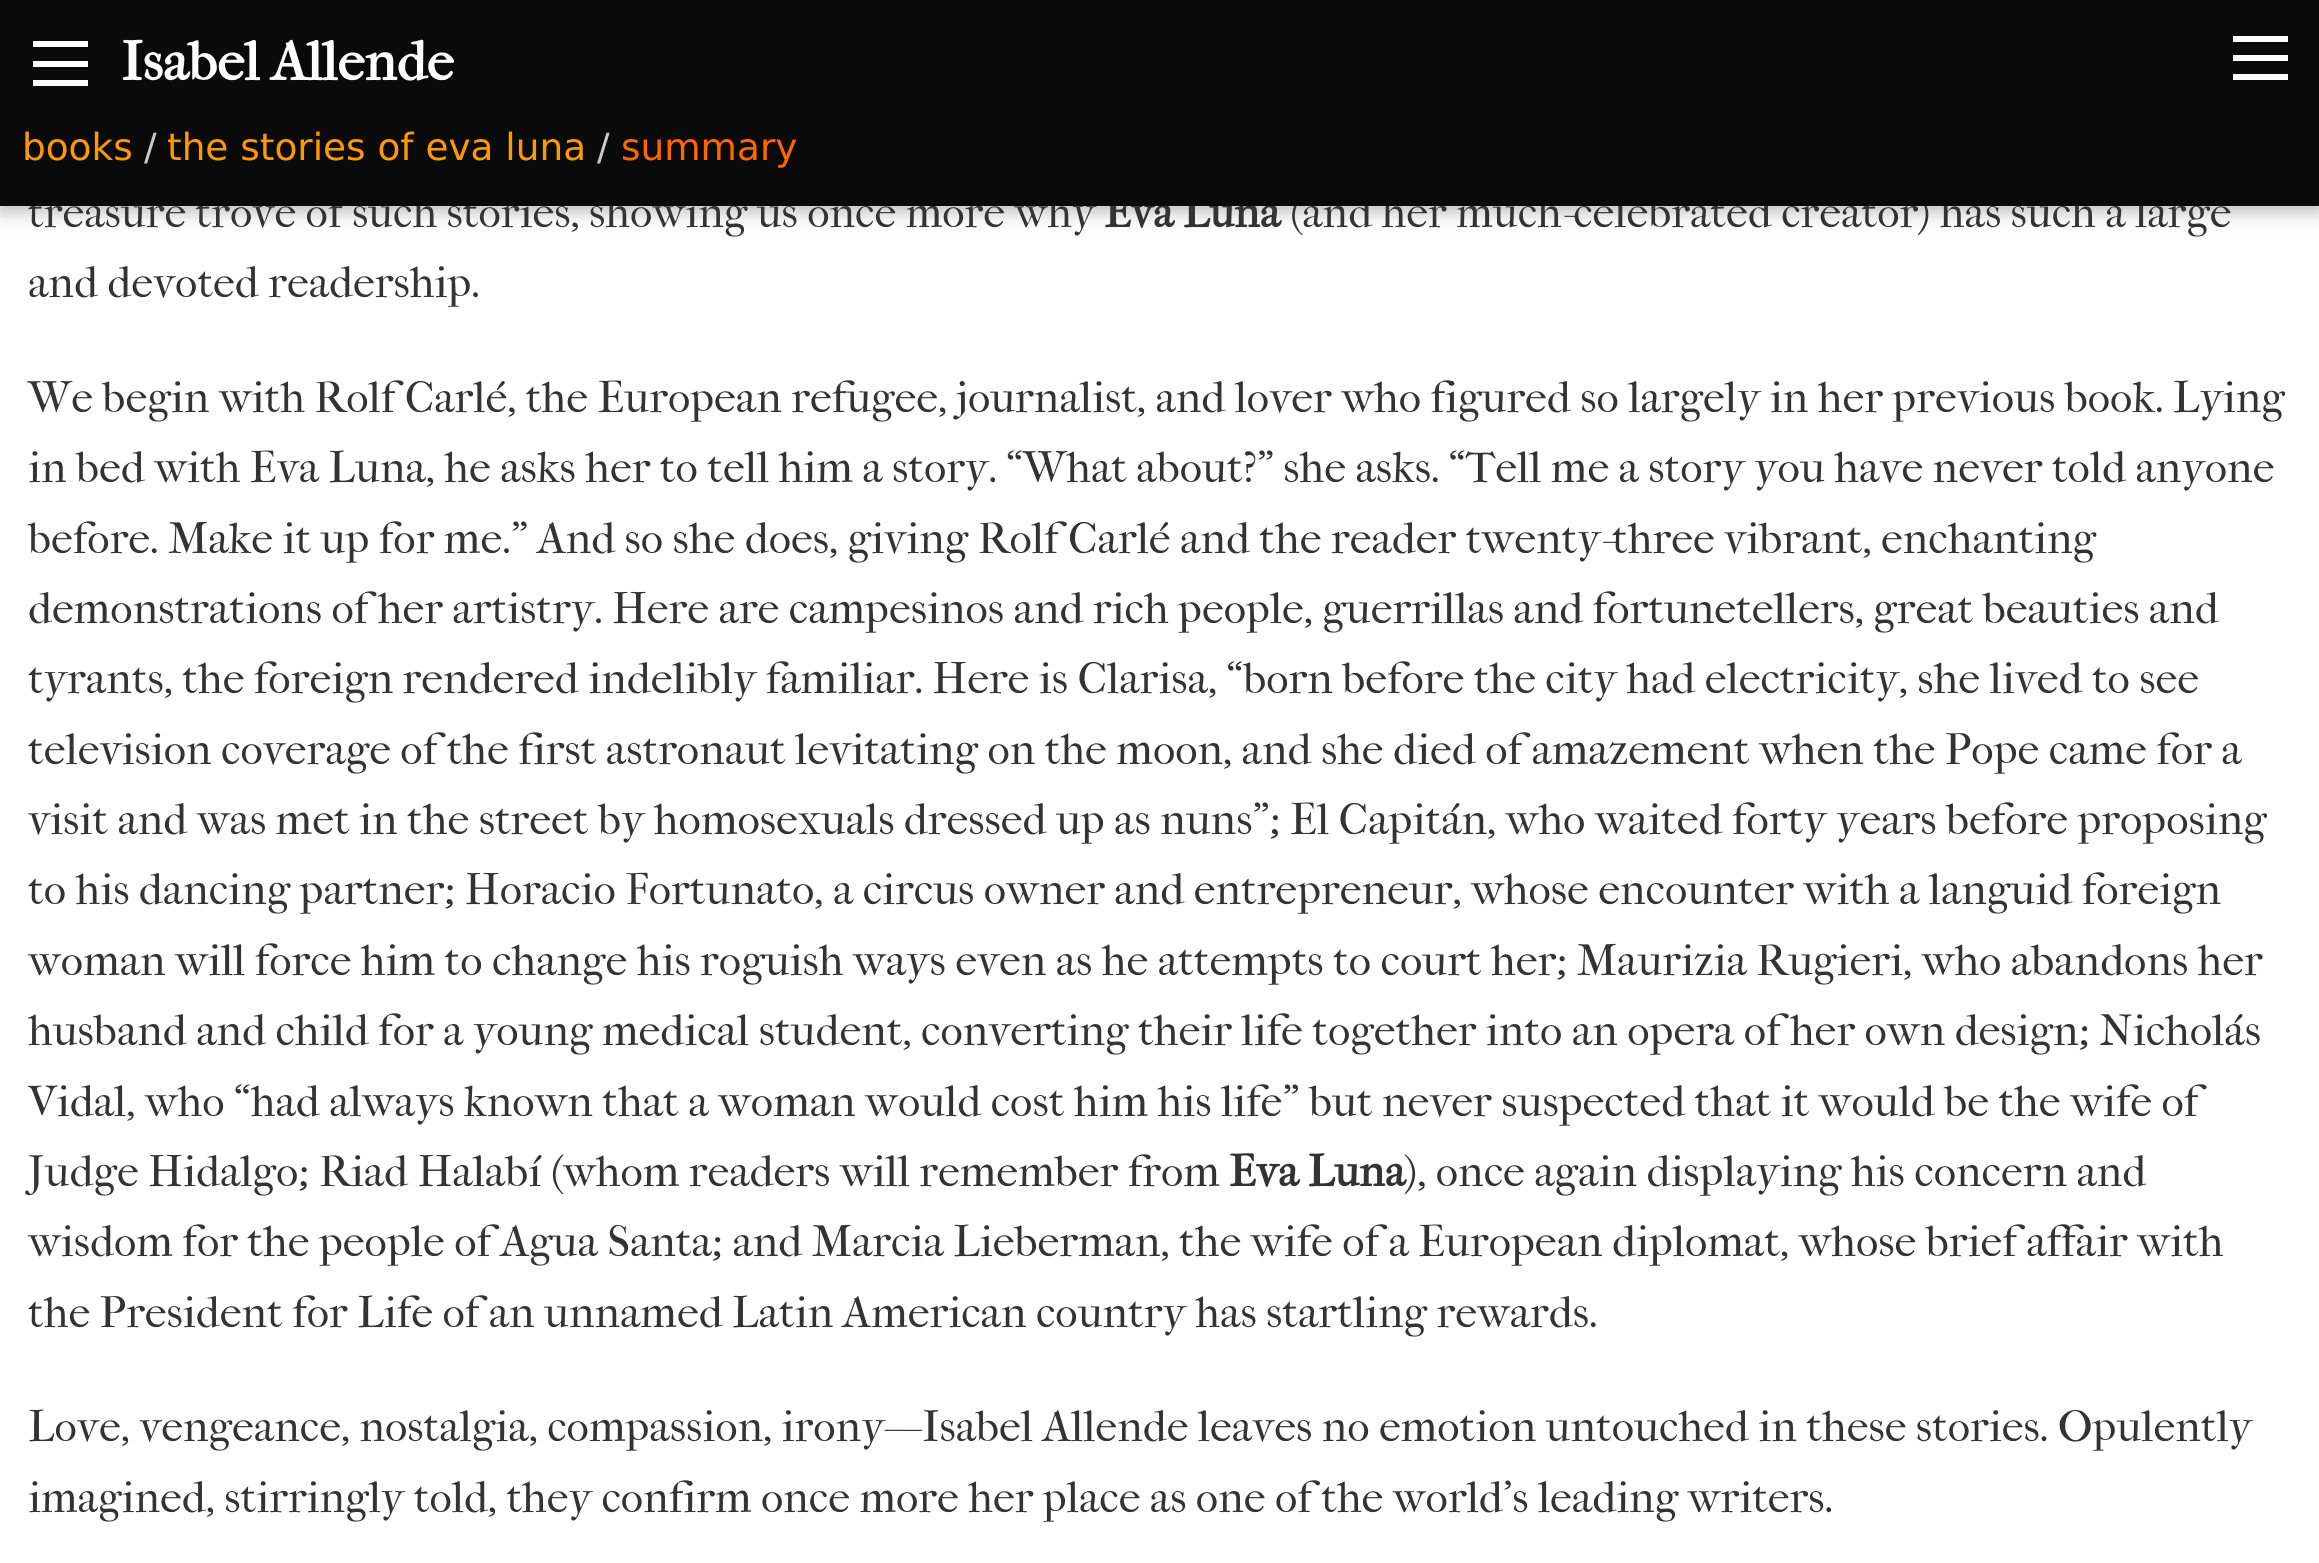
#include <cairo.h>
#include <math.h>
#include <stddef.h>


static void rgb(cairo_t *cr, int r, int g, int b)
{
	cairo_set_source_rgb(cr, r / 255.0, g / 255.0, b / 255.0);
}

static void face(cairo_t *cr, const char *family, double size, int italic, int bold)
{
	cairo_select_font_face(cr, family, italic ? CAIRO_FONT_SLANT_ITALIC : CAIRO_FONT_SLANT_NORMAL,
		bold ? CAIRO_FONT_WEIGHT_BOLD : CAIRO_FONT_WEIGHT_NORMAL);
	cairo_set_font_size(cr, size);
}

static void label(cairo_t *cr, double x, double y, const char *s)
{
	cairo_move_to(cr, x, y);
	cairo_show_text(cr, s);
}

static void rect(cairo_t *cr, double x, double y, double w, double h)
{
	cairo_rectangle(cr, x, y, w, h);
	cairo_fill(cr);
}

static void rrect(cairo_t *cr, double x, double y, double w, double h, double r)
{
	cairo_new_sub_path(cr);
	cairo_arc(cr, x + w - r, y + h - r, r, 0, M_PI / 2);
	cairo_arc(cr, x + r, y + h - r, r, M_PI / 2, M_PI);
	cairo_arc(cr, x + r, y + r, r, M_PI, 1.5 * M_PI);
	cairo_arc(cr, x + w - r, y + r, r, 1.5 * M_PI, 2 * M_PI);
	cairo_close_path(cr);
}

static void soft_shadow(cairo_t *cr, double x, double y, double w, double h, double r, double blur, double alpha)
{
	cairo_push_group_with_content(cr, CAIRO_CONTENT_ALPHA);
	cairo_set_operator(cr, CAIRO_OPERATOR_SOURCE);
	for (int i = 15; i >= -15 && fmin(w, h) + blur * i / 3 > 0; i -= 2) {
		double e = blur * i / 6;
		cairo_set_source_rgba(cr, 0, 0, 0, alpha * erfc((i - 1) / 8.5) / 2);
		rrect(cr, x - e, y - e, w + 2 * e, h + 2 * e, fmax(0, fmin(r + e + blur * .6, fmin(w, h) / 2 + e)));
		cairo_fill(cr);
	}
	cairo_pattern_t *soft = cairo_pop_group(cr);
	cairo_mask(cr, soft);
	cairo_pattern_destroy(soft);
}

static void draw(cairo_t *cr) {
	rgb(cr, 255, 255, 255);
	cairo_paint(cr);
	rgb(cr, 0, 0, 0);
	soft_shadow(cr, 0, 6, 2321, 206, 0, 14, 0.12);
	soft_shadow(cr, 0, 6, 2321, 206, 0, 7, 0.16);
	face(cr, "IM FELL French Canon", 44, 0, 0);
	rgb(cr, 51, 51, 51);
	label(cr, 28, 227, "treasure trove of such stories, showing us once more why");
	face(cr, "IM FELL French Canon", 44, 0, 1);
	label(cr, 1104, 227, "Eva Luna");
	face(cr, "IM FELL French Canon", 44, 0, 0);
	label(cr, 1290, 227, "(and her much-celebrated creator) has such a large");
	rgb(cr, 10, 10, 10);
	rect(cr, 0, 0, 2319, 206);
	rgb(cr, 254, 254, 254);
	rect(cr, 33, 80, 55, 6);
	rect(cr, 33, 61, 55, 6);
	rect(cr, 33, 41, 55, 6);
	face(cr, "IM FELL French Canon", 55, 0, 1);
	rgb(cr, 255, 255, 255);
	label(cr, 121, 80, "Isabel Allende");
	rgb(cr, 254, 254, 254);
	rect(cr, 2233, 74, 55, 6);
	rect(cr, 2233, 55, 55, 6);
	rect(cr, 2233, 36, 55, 6);
	face(cr, "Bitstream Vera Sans", 37.4, 0, 0);
	rgb(cr, 255, 153, 0);
	label(cr, 22, 160, "books");
	rgb(cr, 202, 202, 202);
	label(cr, 144, 160, "/");
	rgb(cr, 255, 153, 0);
	label(cr, 167, 160, "the stories of eva luna");
	rgb(cr, 202, 202, 202);
	label(cr, 597, 160, "/");
	rgb(cr, 255, 102, 0);
	label(cr, 621, 160, "summary");
	face(cr, "IM FELL French Canon", 44, 0, 0);
	rgb(cr, 51, 51, 51);
	label(cr, 28, 297, "and devoted readership.");
	label(cr, 28, 412, "We begin with Rolf Carlé, the European refugee, journalist, and lover who figured so largely in her previous book. Lying");
	label(cr, 28, 482, "in bed with Eva Luna, he asks her to tell him a story. “What about?” she asks. “Tell me a story you have never told anyone");
	label(cr, 28, 553, "before. Make it up for me.” And so she does, giving Rolf Carlé and the reader twenty-three vibrant, enchanting");
	label(cr, 28, 623, "demonstrations of her artistry. Here are campesinos and rich people, guerrillas and fortunetellers, great beauties and");
	label(cr, 28, 693, "tyrants, the foreign rendered indelibly familiar. Here is Clarisa, “born before the city had electricity, she lived to see");
	label(cr, 28, 764, "television coverage of the first astronaut levitating on the moon, and she died of amazement when the Pope came for a");
	label(cr, 28, 834, "visit and was met in the street by homosexuals dressed up as nuns”; El Capitán, who waited forty years before proposing");
	label(cr, 28, 904, "to his dancing partner; Horacio Fortunato, a circus owner and entrepreneur, whose encounter with a languid foreign");
	label(cr, 28, 975, "woman will force him to change his roguish ways even as he attempts to court her; Maurizia Rugieri, who abandons her");
	label(cr, 28, 1045, "husband and child for a young medical student, converting their life together into an opera of her own design; Nicholás");
	label(cr, 28, 1116, "Vidal, who “had always known that a woman would cost him his life” but never suspected that it would be the wife of");
	label(cr, 28, 1186, "Judge Hidalgo; Riad Halabí (whom readers will remember from");
	face(cr, "IM FELL French Canon", 44, 0, 1);
	label(cr, 1229, 1186, "Eva Luna");
	face(cr, "IM FELL French Canon", 44, 0, 0);
	label(cr, 1405, 1186, "), once again displaying his concern and");
	label(cr, 28, 1256, "wisdom for the people of Agua Santa; and Marcia Lieberman, the wife of a European diplomat, whose brief affair with");
	label(cr, 28, 1327, "the President for Life of an unnamed Latin American country has startling rewards.");
	label(cr, 28, 1441, "Love, vengeance, nostalgia, compassion, irony—Isabel Allende leaves no emotion untouched in these stories. Opulently");
	label(cr, 28, 1512, "imagined, stirringly told, they confirm once more her place as one of the world’s leading writers.");
}

int main(void) {
	cairo_surface_t *surface = cairo_image_surface_create(CAIRO_FORMAT_RGB24, 2319, 1563);
	cairo_t *cr = cairo_create(surface);
	cairo_font_options_t *options = cairo_font_options_create();
	cairo_font_options_set_hint_metrics(options, CAIRO_HINT_METRICS_OFF);
	cairo_font_options_set_hint_style(options, CAIRO_HINT_STYLE_NONE);
	cairo_set_font_options(cr, options);
	cairo_set_miter_limit(cr, 4);
	draw(cr);
	cairo_surface_write_to_png(surface, "render.png");
	cairo_font_options_destroy(options);
	cairo_destroy(cr);
	cairo_surface_destroy(surface);
	return 0;
}
